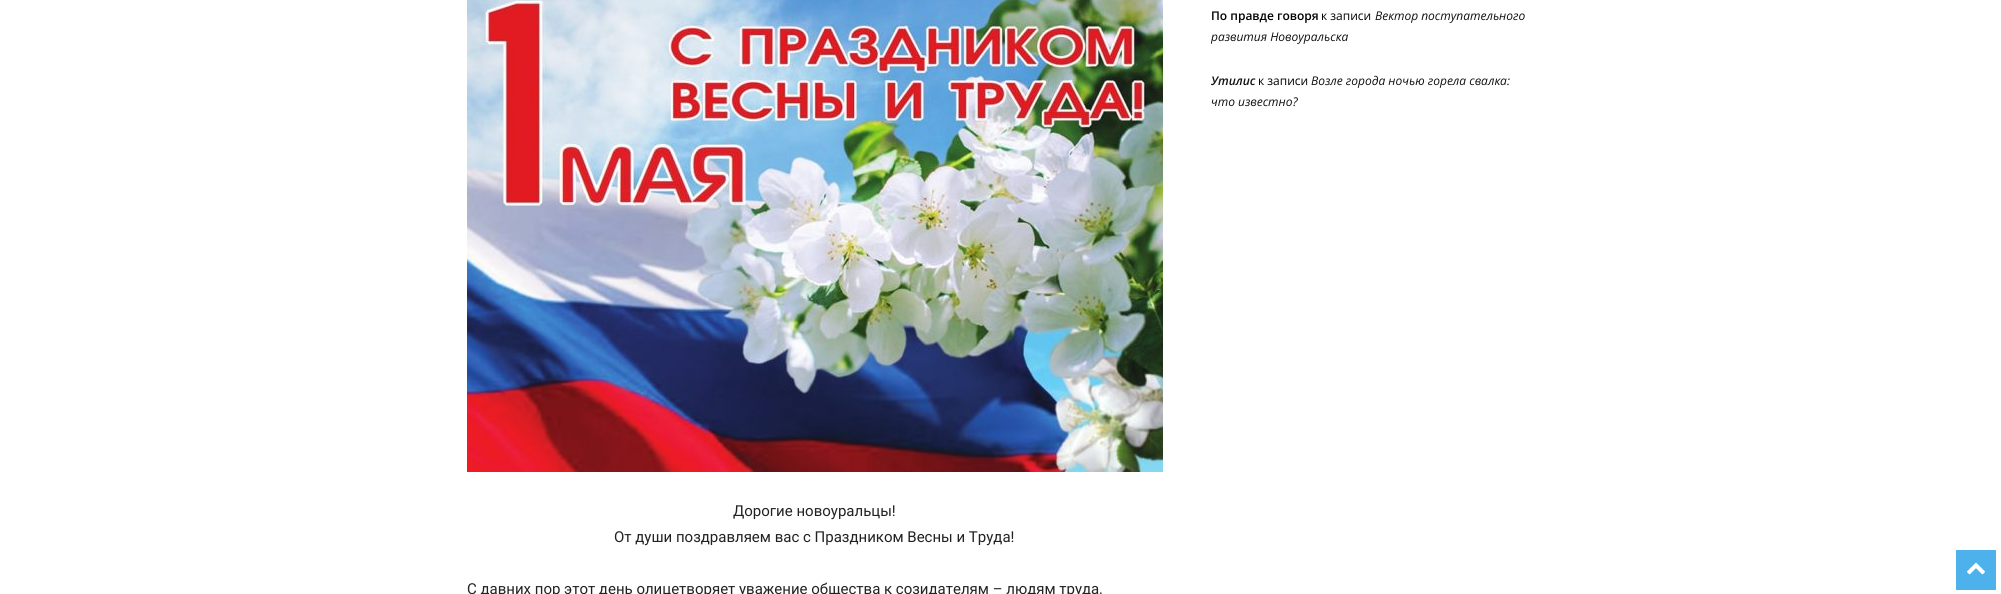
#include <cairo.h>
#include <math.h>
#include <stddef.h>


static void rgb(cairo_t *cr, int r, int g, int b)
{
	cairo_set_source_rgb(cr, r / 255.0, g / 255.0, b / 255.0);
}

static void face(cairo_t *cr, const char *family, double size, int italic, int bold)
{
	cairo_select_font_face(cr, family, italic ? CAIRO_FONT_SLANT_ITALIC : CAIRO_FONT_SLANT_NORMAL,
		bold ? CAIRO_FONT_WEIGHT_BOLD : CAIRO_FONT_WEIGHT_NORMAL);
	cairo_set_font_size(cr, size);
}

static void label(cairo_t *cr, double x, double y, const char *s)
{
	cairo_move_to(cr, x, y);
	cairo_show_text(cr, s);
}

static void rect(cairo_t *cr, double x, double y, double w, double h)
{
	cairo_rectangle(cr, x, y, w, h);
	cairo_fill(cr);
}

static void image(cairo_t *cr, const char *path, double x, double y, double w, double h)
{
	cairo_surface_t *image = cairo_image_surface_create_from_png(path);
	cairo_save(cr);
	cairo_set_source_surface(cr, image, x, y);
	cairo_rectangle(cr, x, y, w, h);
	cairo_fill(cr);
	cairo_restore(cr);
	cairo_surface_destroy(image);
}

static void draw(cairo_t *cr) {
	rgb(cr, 255, 255, 255);
	cairo_paint(cr);
	face(cr, "Open Sans SemiBold", 12, 0, 0);
	rgb(cr, 0, 0, 0);
	label(cr, 1211, 20, "По правде говоря");
	face(cr, "Open Sans", 12, 0, 0);
	label(cr, 1321, 20, "к записи");
	face(cr, "Open Sans", 12, 1, 0);
	rgb(cr, 17, 17, 17);
	label(cr, 1375, 20, "Вектор поступательного");
	cairo_save(cr);
	cairo_rectangle(cr, 1211, 0, 324, 124);
	cairo_clip(cr);
	label(cr, 1211, 41, "развития Новоуральска");
	cairo_restore(cr);
	face(cr, "Open Sans SemiBold", 12, 1, 0);
	label(cr, 1211, 85, "Утилис");
	face(cr, "Open Sans", 12, 0, 0);
	rgb(cr, 0, 0, 0);
	label(cr, 1258, 85, "к записи");
	face(cr, "Open Sans", 12, 1, 0);
	rgb(cr, 17, 17, 17);
	label(cr, 1311, 85, "Возле города ночью горела свалка:");
	label(cr, 1211, 106, "что известно?");
	image(cr, "image0.png", 467, 0, 696, 472);
	face(cr, "Roboto", 15, 0, 0);
	rgb(cr, 34, 34, 34);
	label(cr, 733, 516, "Дорогие новоуральцы!");
	label(cr, 614, 542, "От души поздравляем вас с Праздником Весны и Труда!");
	label(cr, 467, 594, "С давних пор этот день олицетворяет уважение общества к созидателям – людям труда,");
	rgb(cr, 77, 178, 236);
	rect(cr, 1956, 550, 40, 40);
	image(cr, "image1.png", 1967, 562, 18, 13);
}

int main(void) {
	cairo_surface_t *surface = cairo_image_surface_create(CAIRO_FORMAT_RGB24, 2001, 594);
	cairo_t *cr = cairo_create(surface);
	cairo_font_options_t *options = cairo_font_options_create();
	cairo_font_options_set_hint_metrics(options, CAIRO_HINT_METRICS_OFF);
	cairo_font_options_set_hint_style(options, CAIRO_HINT_STYLE_NONE);
	cairo_set_font_options(cr, options);
	cairo_set_miter_limit(cr, 4);
	draw(cr);
	cairo_surface_write_to_png(surface, "render.png");
	cairo_font_options_destroy(options);
	cairo_destroy(cr);
	cairo_surface_destroy(surface);
	return 0;
}
